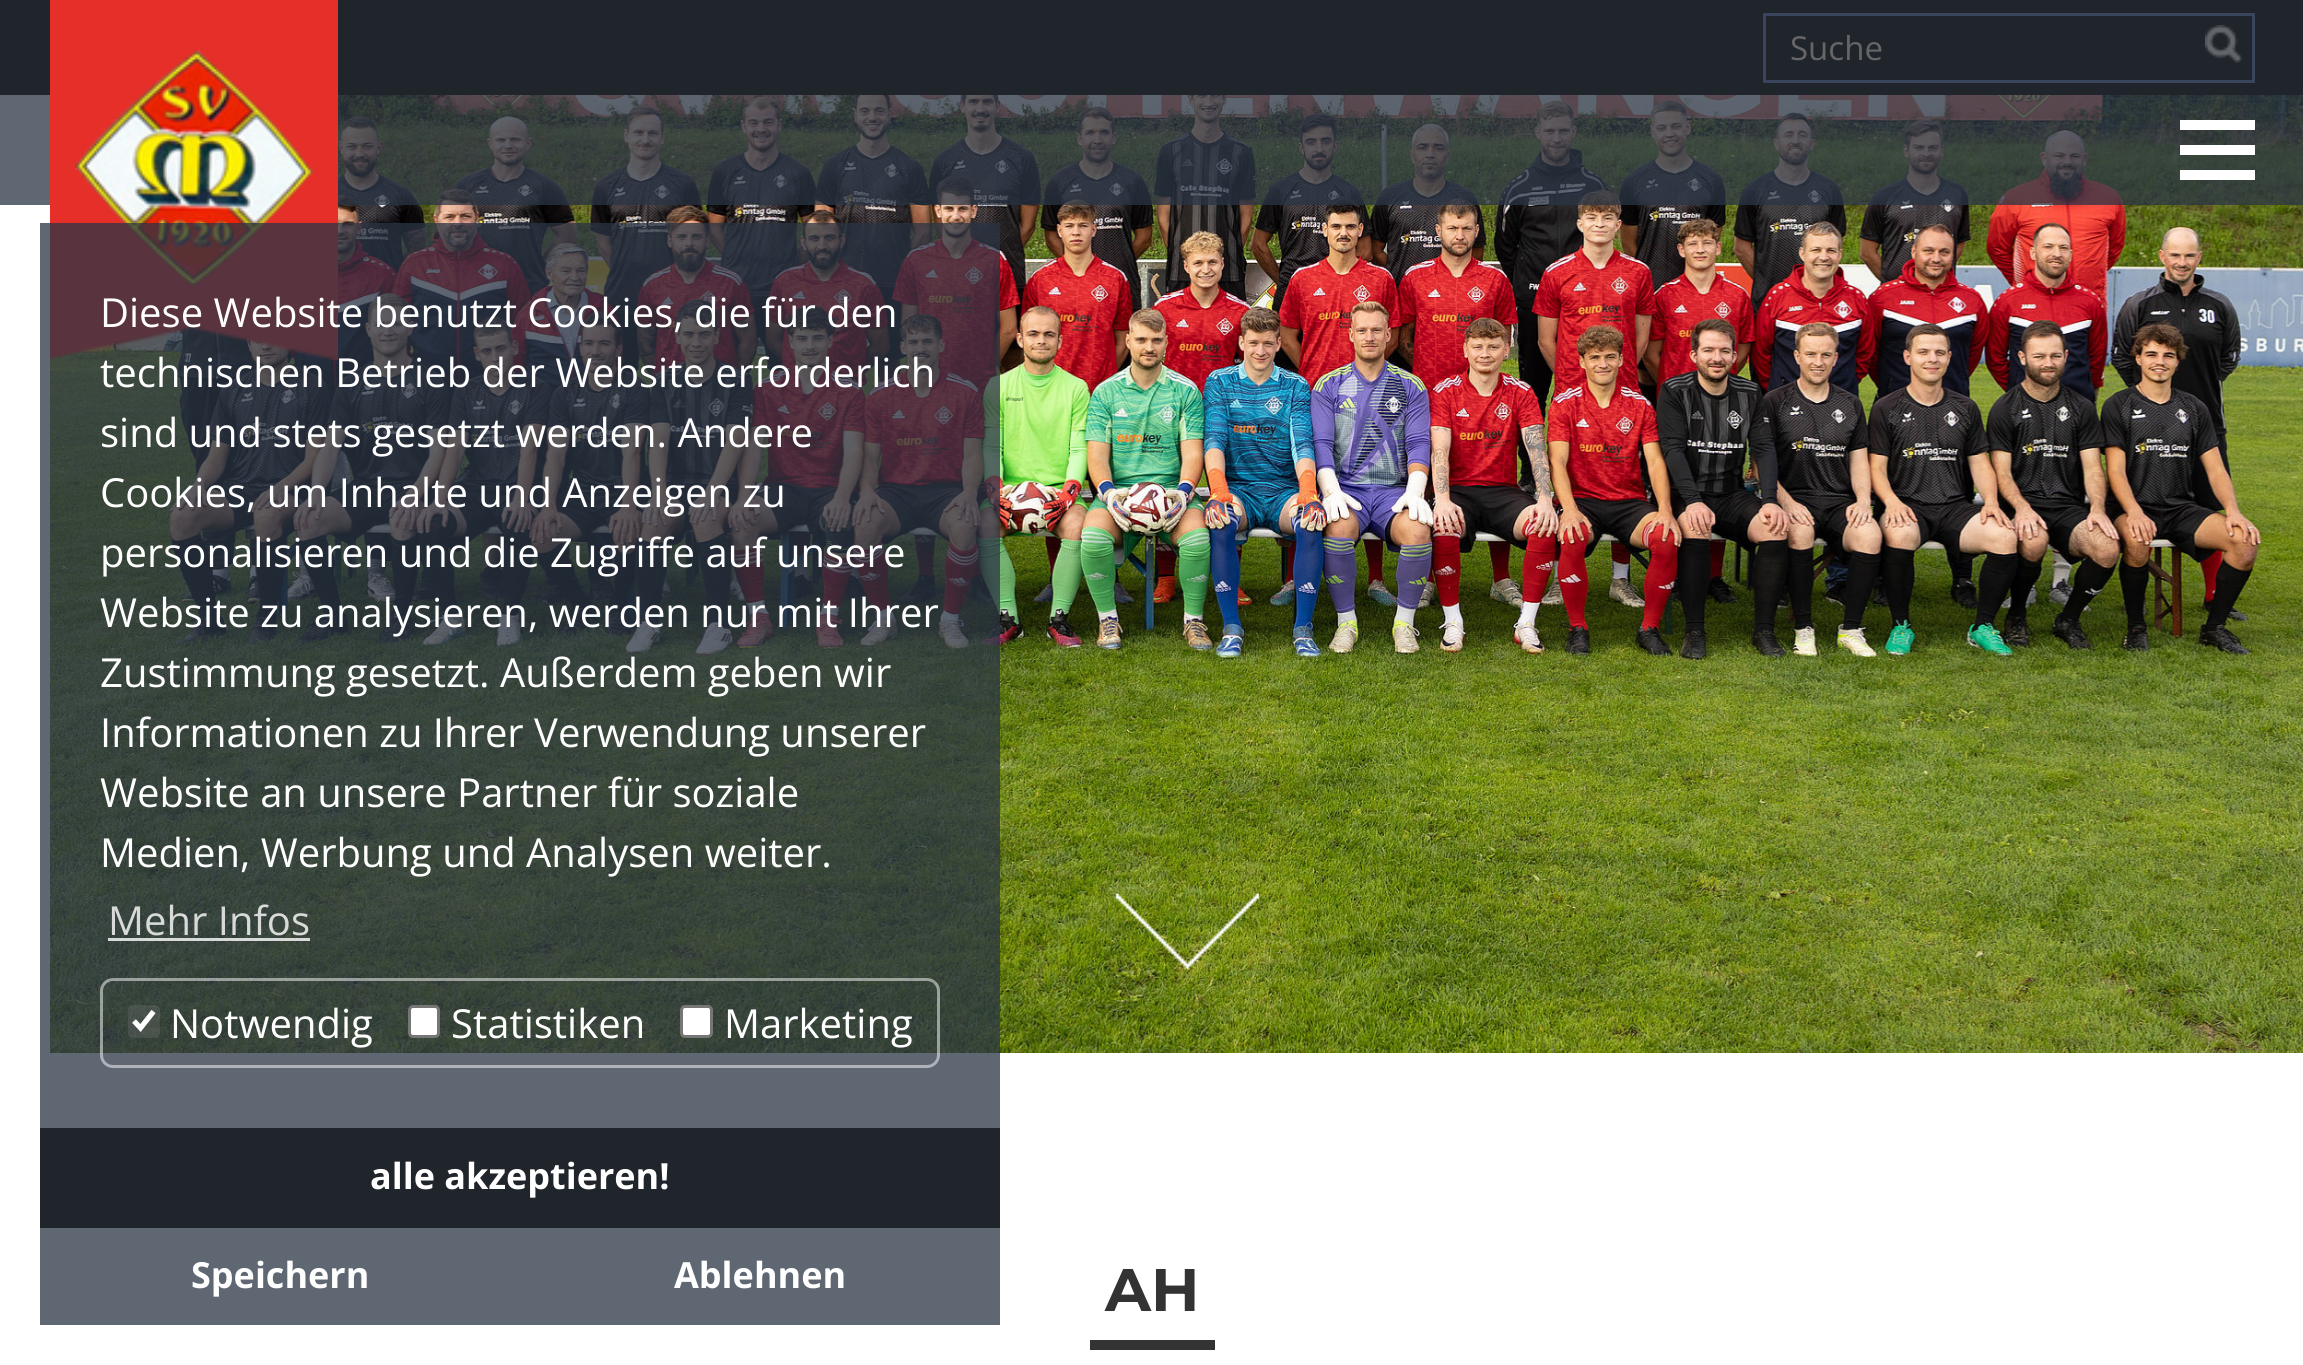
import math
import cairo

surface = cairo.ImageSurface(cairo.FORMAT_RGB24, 2303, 1365)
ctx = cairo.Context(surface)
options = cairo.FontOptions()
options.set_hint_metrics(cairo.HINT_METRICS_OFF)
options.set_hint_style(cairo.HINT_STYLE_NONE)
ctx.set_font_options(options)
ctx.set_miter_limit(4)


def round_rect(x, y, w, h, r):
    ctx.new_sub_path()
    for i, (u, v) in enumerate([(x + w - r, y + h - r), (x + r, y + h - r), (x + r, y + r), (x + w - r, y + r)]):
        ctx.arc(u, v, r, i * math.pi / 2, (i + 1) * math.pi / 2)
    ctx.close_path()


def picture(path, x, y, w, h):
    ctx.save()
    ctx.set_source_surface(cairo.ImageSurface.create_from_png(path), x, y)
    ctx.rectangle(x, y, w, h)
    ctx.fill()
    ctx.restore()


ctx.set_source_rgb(1, 1, 1)
ctx.paint()
ctx.set_source_rgb(0.125, 0.145, 0.173)
ctx.rectangle(0, 0, 2303, 95)
ctx.fill()
picture("img4.png", 50, 95, 2253, 958)
ctx.set_source_rgba(0.165, 0.204, 0.267, 0.75)
ctx.rectangle(0, 95, 2303, 110)
ctx.fill()
picture("img1.png", 50, 0, 288, 360)
picture("img2.png", 75, 50, 238, 238)
ctx.rectangle(1764.5, 14.5, 489, 67)
ctx.set_source_rgb(0.22, 0.271, 0.353)
ctx.set_line_width(3)
ctx.stroke()
ctx.select_font_face("Open Sans")
ctx.set_font_size(33)
ctx.set_source_rgb(0.4, 0.4, 0.4)
ctx.move_to(1790, 60)
ctx.show_text("Suche")
picture("img3.png", 2205, 25, 38, 38)
ctx.set_source_rgb(1, 1, 1)
ctx.rectangle(2180, 120, 75, 10)
ctx.fill()
ctx.rectangle(2180, 145, 75, 10)
ctx.fill()
ctx.rectangle(2180, 170, 75, 10)
ctx.fill()
picture("img5.png", 1116, 893, 143, 76)
ctx.set_source_rgba(0.165, 0.204, 0.267, 0.75)
ctx.rectangle(40, 223, 960, 1102)
ctx.fill()
ctx.set_font_size(40)
ctx.set_source_rgb(1, 1, 1)
ctx.move_to(100, 327)
ctx.show_text("Diese Website benutzt Cookies, die für den")
ctx.move_to(100, 387)
ctx.show_text("technischen Betrieb der Website erforderlich")
ctx.move_to(100, 447)
ctx.show_text("sind und stets gesetzt werden. Andere")
ctx.move_to(100, 507)
ctx.show_text("Cookies, um Inhalte und Anzeigen zu")
ctx.move_to(100, 567)
ctx.show_text("personalisieren und die Zugriffe auf unsere")
ctx.move_to(100, 627)
ctx.show_text("Website zu analysieren, werden nur mit Ihrer")
ctx.move_to(100, 687)
ctx.show_text("Zustimmung gesetzt. Außerdem geben wir")
ctx.move_to(100, 747)
ctx.show_text("Informationen zu Ihrer Verwendung unserer")
ctx.move_to(100, 807)
ctx.show_text("Website an unsere Partner für soziale")
ctx.move_to(100, 867)
ctx.show_text("Medien, Werbung und Analysen weiter.")
ctx.set_source_rgb(0.843, 0.855, 0.847)
ctx.move_to(108, 935)
ctx.show_text("Mehr Infos")
ctx.set_source_rgba(1, 1, 1, 0.8)
ctx.rectangle(108, 938, 202, 3)
ctx.fill()
round_rect(101.5, 979.5, 837, 87, 11.5)
ctx.set_source_rgba(1, 1, 1, 0.5)
ctx.stroke()
ctx.set_source_rgba(0.463, 0.463, 0.463, 0.3)
round_rect(128, 1005, 32, 33, 5)
ctx.fill()
ctx.new_path()
ctx.move_to(134, 1021)
ctx.line_to(140.5, 1028)
ctx.line_to(153.5, 1011.5)
ctx.set_source_rgb(1, 1, 1)
ctx.set_line_width(5.2)
ctx.stroke()
ctx.move_to(170, 1038)
ctx.show_text("Notwendig")
round_rect(409.5, 1006.5, 29, 30, 3.5)
ctx.fill_preserve()
ctx.set_source_rgb(0.463, 0.463, 0.463)
ctx.set_line_width(3)
ctx.stroke()
ctx.set_source_rgb(1, 1, 1)
ctx.move_to(451, 1038)
ctx.show_text("Statistiken")
round_rect(681.5, 1006.5, 30, 30, 3.5)
ctx.fill_preserve()
ctx.set_source_rgb(0.463, 0.463, 0.463)
ctx.stroke()
ctx.set_source_rgb(1, 1, 1)
ctx.move_to(724, 1038)
ctx.show_text("Marketing")
ctx.set_source_rgb(0.125, 0.145, 0.173)
ctx.rectangle(40, 1128, 960, 100)
ctx.fill()
ctx.select_font_face("Open Sans", cairo.FONT_SLANT_NORMAL, cairo.FONT_WEIGHT_BOLD)
ctx.set_font_size(36)
ctx.set_source_rgb(1, 1, 1)
ctx.move_to(370, 1189)
ctx.show_text("alle akzeptieren!")
ctx.move_to(191, 1288)
ctx.show_text("Speichern")
ctx.move_to(674, 1288)
ctx.show_text("Ablehnen")
ctx.select_font_face("Montserrat Thin")
ctx.set_font_size(60)
ctx.set_source_rgb(0.2, 0.2, 0.2)
ctx.move_to(1105, 1311)
ctx.show_text("AH")
ctx.rectangle(1090, 1340, 125, 10)
ctx.fill()
surface.write_to_png("page.png")
